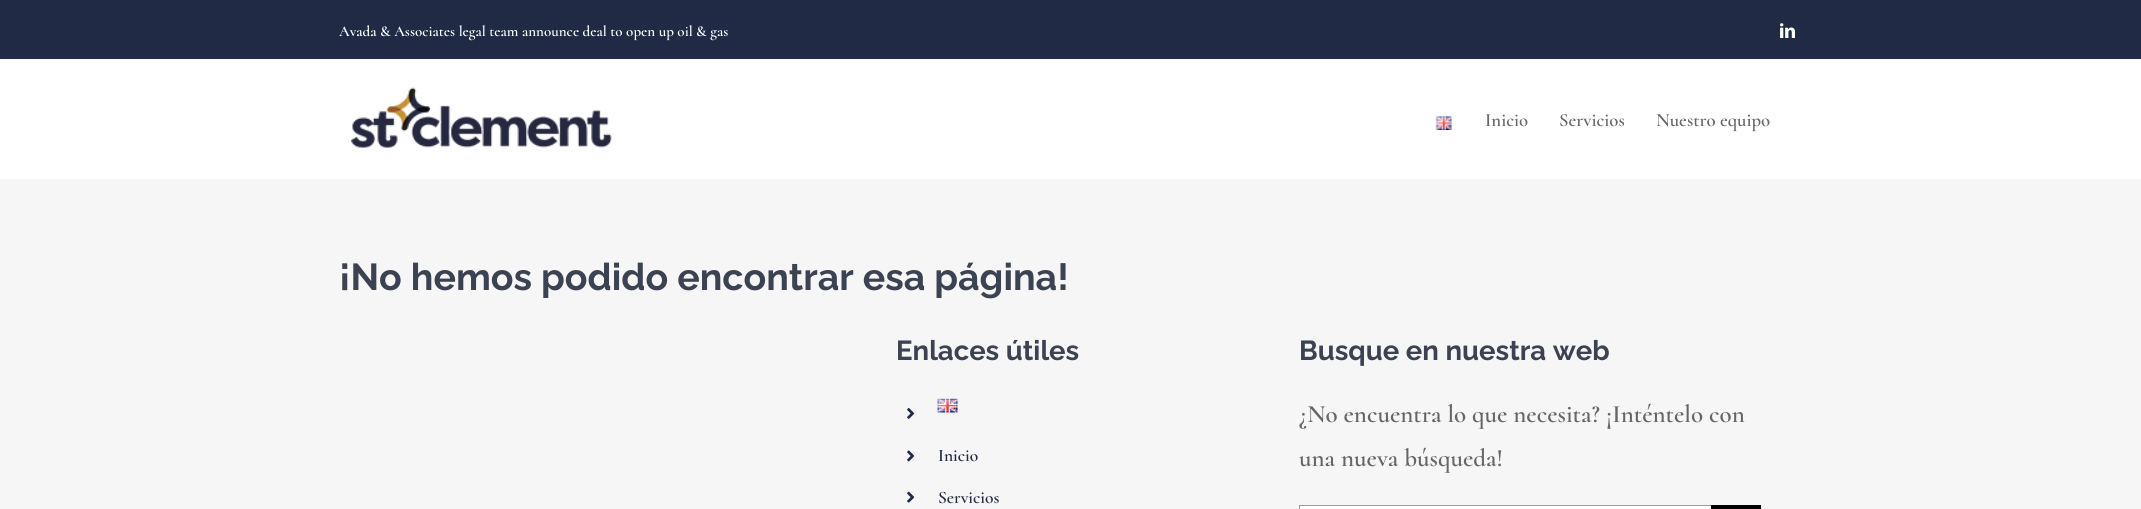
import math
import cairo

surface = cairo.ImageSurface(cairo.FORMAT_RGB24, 2141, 509)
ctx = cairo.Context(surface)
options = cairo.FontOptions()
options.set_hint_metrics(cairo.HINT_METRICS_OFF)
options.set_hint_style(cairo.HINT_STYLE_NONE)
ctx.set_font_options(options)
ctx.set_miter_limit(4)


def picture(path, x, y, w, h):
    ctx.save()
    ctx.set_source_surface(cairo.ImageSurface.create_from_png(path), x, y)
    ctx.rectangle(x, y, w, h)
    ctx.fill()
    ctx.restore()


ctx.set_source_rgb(0.961, 0.961, 0.961)
ctx.paint()
ctx.set_source_rgb(0.125, 0.165, 0.267)
ctx.rectangle(0, 0, 2141, 59)
ctx.fill()
ctx.select_font_face("Cormorant SemiBold")
ctx.set_font_size(15)
ctx.set_source_rgb(1, 1, 1)
ctx.move_to(339, 36)
ctx.show_text("Avada & Associates legal team announce deal to open up oil & gas")
picture("img1.png", 1780, 23, 15, 15)
ctx.rectangle(0, 60, 2141, 119)
ctx.fill()
picture("img2.png", 350, 87, 262, 62)
picture("img3.png", 1435, 116, 17, 14)
ctx.set_font_size(18.75)
ctx.set_source_rgb(0.4, 0.4, 0.4)
ctx.move_to(1485, 126)
ctx.show_text("Inicio")
ctx.move_to(1559, 126)
ctx.show_text("Servicios")
ctx.move_to(1656, 126)
ctx.show_text("Nuestro equipo")
ctx.select_font_face("Raleway Thin")
ctx.set_font_size(37.5)
ctx.set_source_rgb(0.231, 0.259, 0.318)
ctx.move_to(339, 290)
ctx.show_text("¡No hemos podido encontrar esa página!")
ctx.set_font_size(27.5)
ctx.move_to(896, 360)
ctx.show_text("Enlaces útiles")
picture("img4.png", 907, 408, 8, 11)
picture("img5.png", 937, 398, 21, 15)
picture("img6.png", 907, 450, 8, 12)
ctx.select_font_face("Cormorant SemiBold")
ctx.set_font_size(17.5)
ctx.set_source_rgb(0.125, 0.165, 0.267)
ctx.move_to(938, 461)
ctx.show_text("Inicio")
picture("img7.png", 907, 491, 8, 12)
ctx.move_to(938, 503)
ctx.show_text("Servicios")
ctx.select_font_face("Raleway Thin")
ctx.set_font_size(27.5)
ctx.set_source_rgb(0.231, 0.259, 0.318)
ctx.move_to(1299, 360)
ctx.show_text("Busque en nuestra web")
ctx.select_font_face("Cormorant SemiBold")
ctx.set_font_size(25)
ctx.set_source_rgb(0.4, 0.4, 0.4)
ctx.move_to(1299, 422)
ctx.show_text("¿No encuentra lo que necesita? ¡Inténtelo con")
ctx.move_to(1299, 466)
ctx.show_text("una nueva búsqueda!")
ctx.set_source_rgb(1, 1, 1)
ctx.rectangle(1299, 506, 412, 3)
ctx.fill()
ctx.set_source_rgb(0.737, 0.6, 0.365)
ctx.rectangle(1299, 505, 412, 1)
ctx.fill()
ctx.rectangle(1299, 505, 1, 4)
ctx.fill()
ctx.set_source_rgb(0, 0, 0)
ctx.rectangle(1711, 505, 50, 4)
ctx.fill()
surface.write_to_png("page.png")
